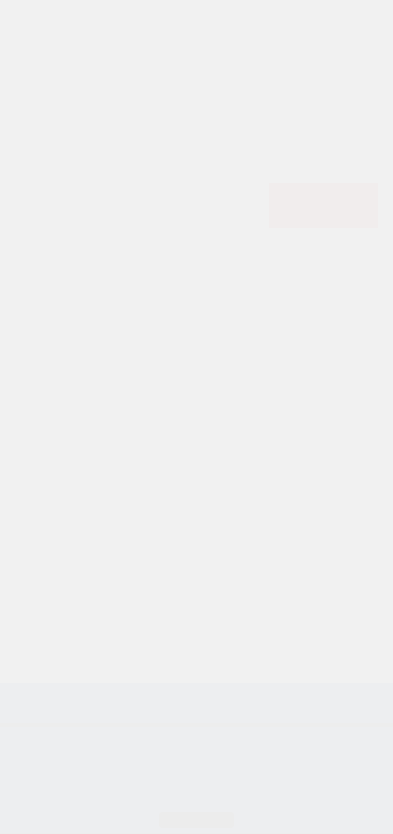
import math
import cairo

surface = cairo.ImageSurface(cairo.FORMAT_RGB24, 393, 834)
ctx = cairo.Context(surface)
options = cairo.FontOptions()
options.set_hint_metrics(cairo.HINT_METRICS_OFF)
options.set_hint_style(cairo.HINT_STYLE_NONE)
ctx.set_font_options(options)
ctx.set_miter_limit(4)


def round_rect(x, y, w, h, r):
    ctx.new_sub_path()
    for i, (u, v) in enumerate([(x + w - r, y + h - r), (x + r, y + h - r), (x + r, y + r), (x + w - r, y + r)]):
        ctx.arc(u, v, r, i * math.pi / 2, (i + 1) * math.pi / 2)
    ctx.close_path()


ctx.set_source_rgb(0.929, 0.933, 0.941)
ctx.paint()
ctx.set_source_rgb(0.945, 0.945, 0.945)
ctx.rectangle(0, 0, 393, 683)
ctx.fill()
ctx.set_source_rgb(0.945, 0.929, 0.929)
ctx.rectangle(269, 183, 109, 45)
ctx.fill()
ctx.set_source_rgb(0.929, 0.929, 0.929)
ctx.rectangle(0, 723, 393, 4)
ctx.fill()
ctx.rectangle(0, 833, 393, 1)
ctx.fill()
ctx.set_source_rgb(0.925, 0.925, 0.925)
round_rect(159, 812, 75, 16, 3)
ctx.fill()
surface.write_to_png("page.png")
